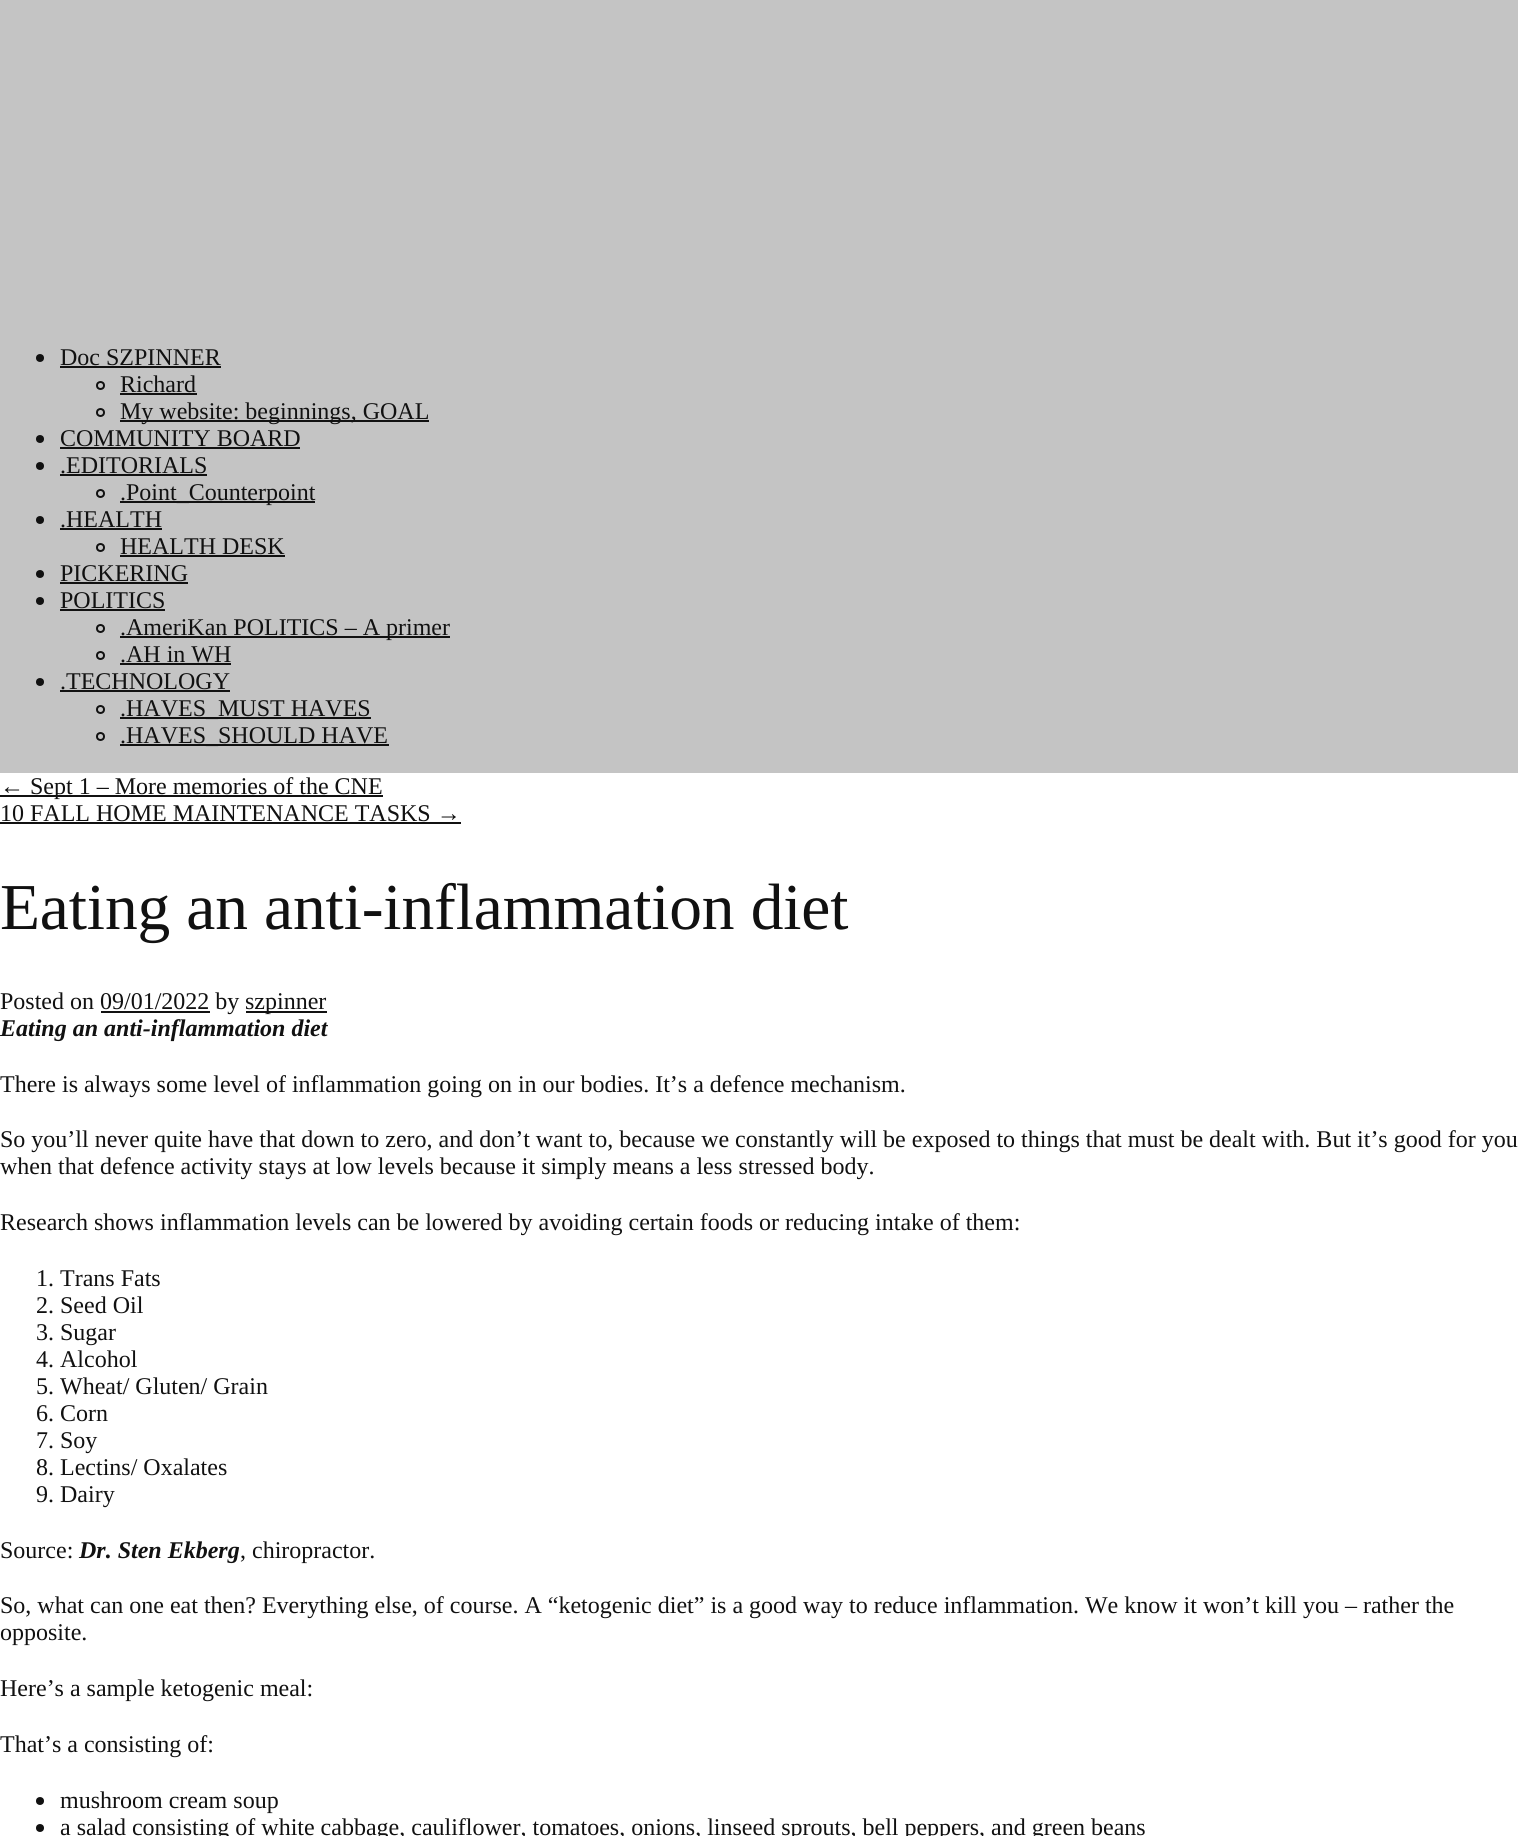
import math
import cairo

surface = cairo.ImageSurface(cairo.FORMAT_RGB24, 1518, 1836)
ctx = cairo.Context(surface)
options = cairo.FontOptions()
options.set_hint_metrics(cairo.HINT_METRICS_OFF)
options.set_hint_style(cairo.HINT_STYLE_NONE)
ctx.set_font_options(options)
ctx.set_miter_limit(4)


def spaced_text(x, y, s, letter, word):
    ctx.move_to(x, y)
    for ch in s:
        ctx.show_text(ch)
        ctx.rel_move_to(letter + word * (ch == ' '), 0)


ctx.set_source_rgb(0.769, 0.769, 0.769)
ctx.paint()
ctx.set_source_rgb(0.067, 0.067, 0.067)
ctx.arc(40, 358, 4, 0, 2 * math.pi)
ctx.fill()
ctx.select_font_face("Liberation Serif")
ctx.set_font_size(24)
ctx.move_to(60, 365)
ctx.show_text("Doc SZPINNER")
ctx.rectangle(60, 366, 161, 2)
ctx.fill()
ctx.arc(100.5, 385.5, 3.5, 0, 2 * math.pi)
ctx.stroke()
ctx.move_to(120, 392)
ctx.show_text("Richard")
ctx.rectangle(120, 393, 77, 2)
ctx.fill()
ctx.arc(100.5, 412.5, 3.5, 0, 2 * math.pi)
ctx.stroke()
ctx.rectangle(120, 420, 309, 2)
ctx.fill()
ctx.move_to(120, 419)
ctx.show_text("My website: beginnings, GOAL")
ctx.new_path()
ctx.arc(40, 439, 4, 0, 2 * math.pi)
ctx.fill()
ctx.move_to(60, 446)
ctx.show_text("COMMUNITY BOARD")
ctx.rectangle(60, 447, 240, 2)
ctx.fill()
ctx.arc(40, 466, 4, 0, 2 * math.pi)
ctx.fill()
ctx.move_to(60, 473)
ctx.show_text(".EDITORIALS")
ctx.rectangle(60, 474, 147, 2)
ctx.fill()
ctx.arc(100.5, 493.5, 3.5, 0, 2 * math.pi)
ctx.stroke()
ctx.rectangle(120, 501, 195, 2)
ctx.fill()
ctx.move_to(120, 500)
ctx.show_text(".Point_Counterpoint")
ctx.new_path()
ctx.arc(40, 520, 4, 0, 2 * math.pi)
ctx.fill()
ctx.move_to(60, 527)
ctx.show_text(".HEALTH")
ctx.rectangle(60, 528, 102, 2)
ctx.fill()
ctx.arc(100.5, 547.5, 3.5, 0, 2 * math.pi)
ctx.stroke()
ctx.move_to(120, 554)
ctx.show_text("HEALTH DESK")
ctx.rectangle(120, 555, 165, 2)
ctx.fill()
ctx.arc(40, 574, 4, 0, 2 * math.pi)
ctx.fill()
ctx.move_to(60, 581)
ctx.show_text("PICKERING")
ctx.rectangle(60, 582, 128, 2)
ctx.fill()
ctx.arc(40, 601, 4, 0, 2 * math.pi)
ctx.fill()
ctx.move_to(60, 608)
ctx.show_text("POLITICS")
ctx.rectangle(60, 609, 105, 2)
ctx.fill()
ctx.arc(100.5, 628.5, 3.5, 0, 2 * math.pi)
ctx.stroke()
ctx.rectangle(120, 636, 330, 2)
ctx.fill()
ctx.move_to(120, 635)
ctx.show_text(".AmeriKan POLITICS – A primer")
ctx.new_path()
ctx.arc(100.5, 655.5, 3.5, 0, 2 * math.pi)
ctx.stroke()
ctx.move_to(120, 662)
ctx.show_text(".AH in WH")
ctx.rectangle(120, 663, 111, 2)
ctx.fill()
ctx.arc(40, 682, 4, 0, 2 * math.pi)
ctx.fill()
ctx.move_to(60, 689)
ctx.show_text(".TECHNOLOGY")
ctx.rectangle(60, 690, 170, 2)
ctx.fill()
ctx.arc(100.5, 709.5, 3.5, 0, 2 * math.pi)
ctx.stroke()
ctx.rectangle(120, 717, 251, 2)
ctx.fill()
ctx.move_to(120, 716)
ctx.show_text(".HAVES_MUST HAVES")
ctx.new_path()
ctx.arc(100.5, 736.5, 3.5, 0, 2 * math.pi)
ctx.stroke()
ctx.rectangle(120, 744, 269, 2)
ctx.fill()
ctx.move_to(120, 743)
ctx.show_text(".HAVES_SHOULD HAVE")
ctx.set_source_rgb(1, 1, 1)
ctx.rectangle(0, 773, 1518, 1063)
ctx.fill()
ctx.set_source_rgb(0.067, 0.067, 0.067)
ctx.rectangle(0, 795, 383, 2)
ctx.fill()
ctx.move_to(0, 794)
ctx.show_text("← Sept 1 – More memories of the CNE")
ctx.move_to(0, 821)
ctx.show_text("10 FALL HOME MAINTENANCE TASKS →")
ctx.rectangle(0, 822, 461, 2)
ctx.fill()
ctx.set_font_size(65.5)
spaced_text(0, 929, "Eating an anti-inflammation diet", -0.15, 0)
ctx.set_font_size(24)
ctx.move_to(0, 1009)
ctx.show_text("Posted on 09/01/2022 by")
ctx.rectangle(246, 1011, 81, 2)
ctx.fill()
ctx.move_to(245, 1009)
ctx.show_text("szpinner")
ctx.rectangle(101, 1011, 109, 2)
ctx.fill()
ctx.select_font_face("Liberation Serif", cairo.FONT_SLANT_ITALIC, cairo.FONT_WEIGHT_BOLD)
ctx.move_to(0, 1036)
ctx.show_text("Eating an anti-inflammation diet")
ctx.select_font_face("Liberation Serif")
ctx.move_to(0, 1092)
ctx.show_text("There is always some level of inflammation going on in our bodies. It’s a defence mechanism.")
ctx.move_to(0, 1147)
ctx.show_text("So you’ll never quite have that down to zero, and don’t want to, because we constantly will be exposed to things that must be dealt with. But it’s good for you")
ctx.move_to(0, 1174)
ctx.show_text("when that defence activity stays at low levels because it simply means a less stressed body.")
ctx.move_to(0, 1230)
ctx.show_text("Research shows inflammation levels can be lowered by avoiding certain foods or reducing intake of them:")
ctx.move_to(36, 1286)
ctx.show_text("1. Trans Fats")
ctx.move_to(36, 1313)
ctx.show_text("2. Seed Oil")
ctx.move_to(36, 1340)
ctx.show_text("3. Sugar")
ctx.move_to(36, 1367)
ctx.show_text("4. Alcohol")
ctx.move_to(36, 1394)
ctx.show_text("5. Wheat/ Gluten/ Grain")
ctx.move_to(36, 1421)
ctx.show_text("6. Corn")
ctx.move_to(36, 1448)
ctx.show_text("7. Soy")
ctx.move_to(36, 1475)
ctx.show_text("8. Lectins/ Oxalates")
ctx.move_to(36, 1502)
ctx.show_text("9. Dairy")
ctx.move_to(0, 1558)
ctx.show_text("Source:")
ctx.select_font_face("Liberation Serif", cairo.FONT_SLANT_ITALIC, cairo.FONT_WEIGHT_BOLD)
ctx.move_to(79, 1558)
ctx.show_text("Dr. Sten Ekberg")
ctx.select_font_face("Liberation Serif")
ctx.move_to(240, 1558)
ctx.show_text(", chiropractor.")
ctx.move_to(0, 1613)
ctx.show_text("So, what can one eat then? Everything else, of course. A “ketogenic diet” is a good way to reduce inflammation. We know it won’t kill you – rather the")
ctx.move_to(0, 1640)
ctx.show_text("opposite.")
ctx.move_to(0, 1696)
ctx.show_text("Here’s a sample ketogenic meal:")
ctx.move_to(0, 1752)
ctx.show_text("That’s a consisting of:")
ctx.new_path()
ctx.arc(40, 1801, 4, 0, 2 * math.pi)
ctx.fill()
ctx.move_to(60, 1808)
ctx.show_text("mushroom cream soup")
ctx.new_path()
ctx.arc(40, 1828, 4, 0, 2 * math.pi)
ctx.fill()
ctx.move_to(60, 1835)
ctx.show_text("a salad consisting of white cabbage, cauliflower, tomatoes, onions, linseed sprouts, bell peppers, and green beans")
surface.write_to_png("page.png")
